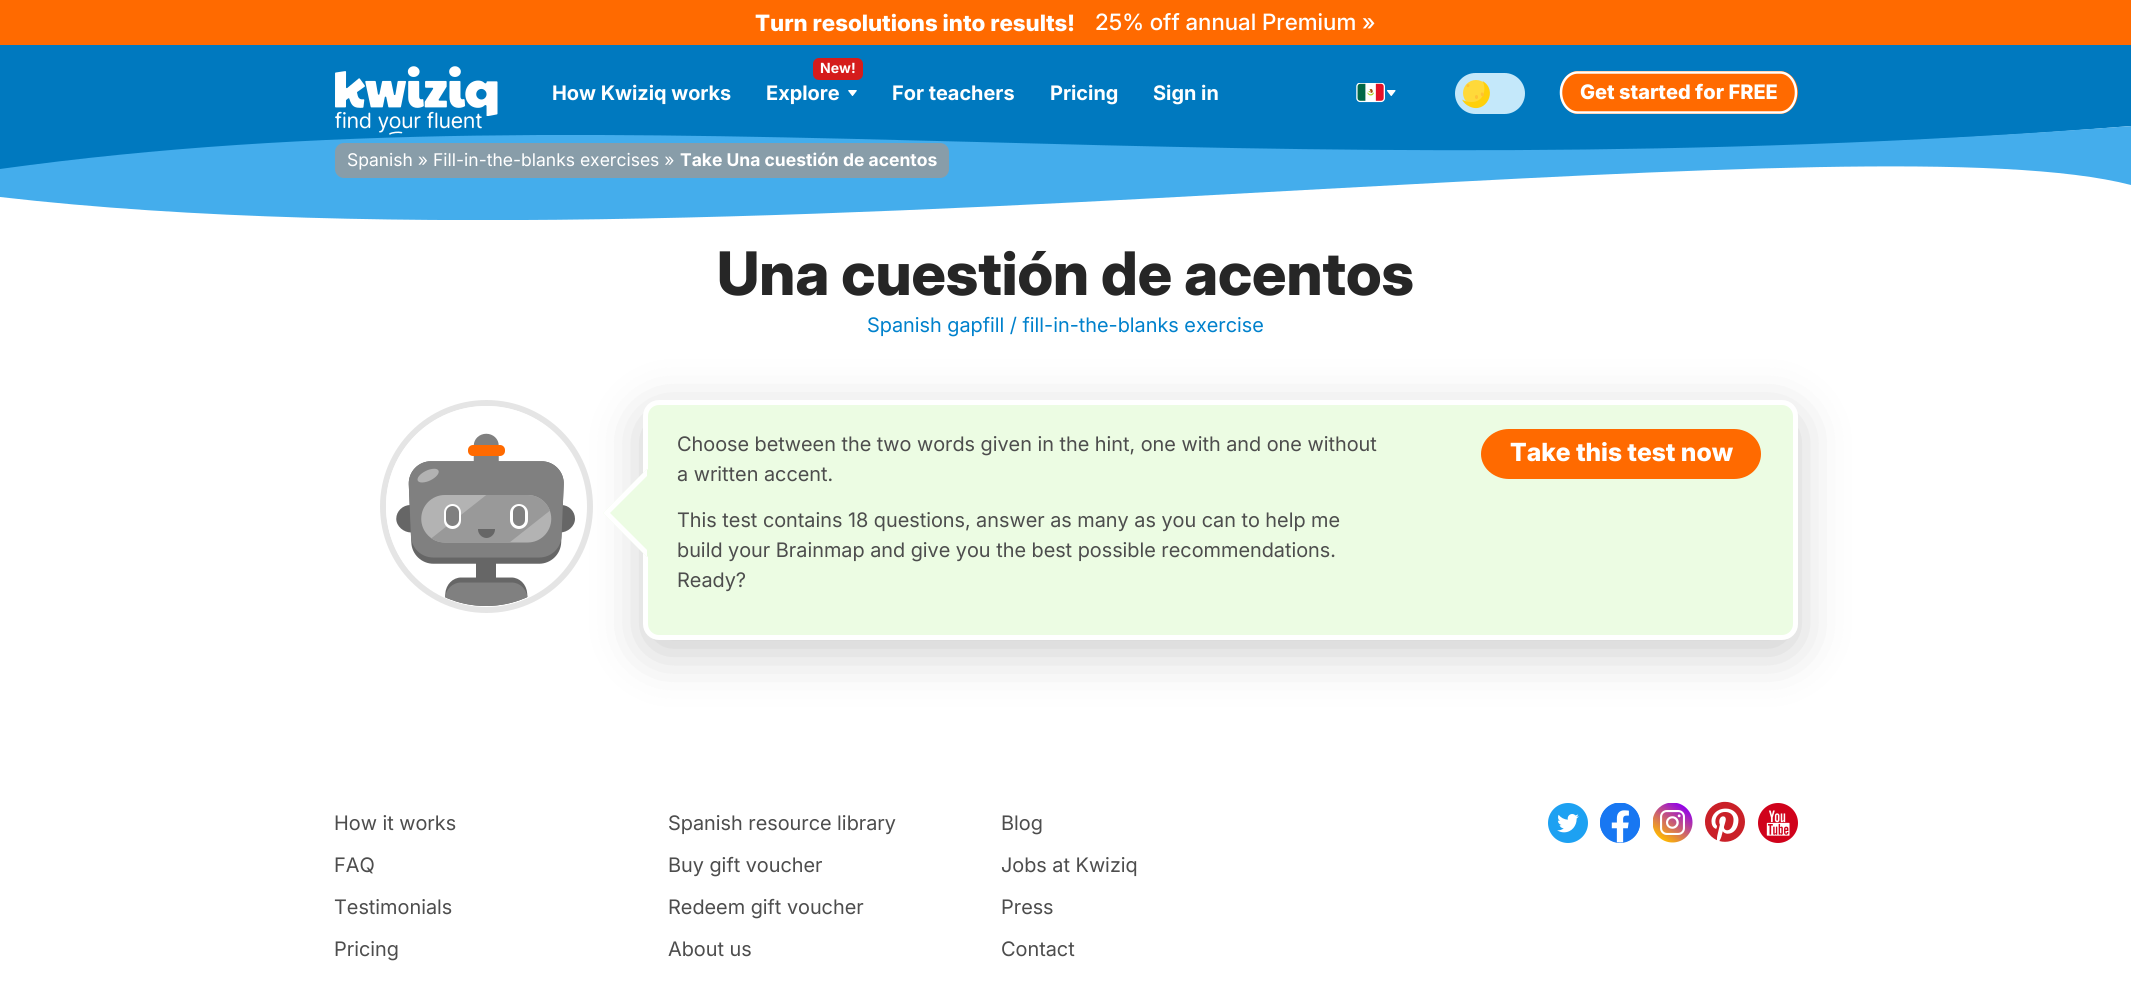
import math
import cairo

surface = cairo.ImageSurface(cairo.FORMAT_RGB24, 2131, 990)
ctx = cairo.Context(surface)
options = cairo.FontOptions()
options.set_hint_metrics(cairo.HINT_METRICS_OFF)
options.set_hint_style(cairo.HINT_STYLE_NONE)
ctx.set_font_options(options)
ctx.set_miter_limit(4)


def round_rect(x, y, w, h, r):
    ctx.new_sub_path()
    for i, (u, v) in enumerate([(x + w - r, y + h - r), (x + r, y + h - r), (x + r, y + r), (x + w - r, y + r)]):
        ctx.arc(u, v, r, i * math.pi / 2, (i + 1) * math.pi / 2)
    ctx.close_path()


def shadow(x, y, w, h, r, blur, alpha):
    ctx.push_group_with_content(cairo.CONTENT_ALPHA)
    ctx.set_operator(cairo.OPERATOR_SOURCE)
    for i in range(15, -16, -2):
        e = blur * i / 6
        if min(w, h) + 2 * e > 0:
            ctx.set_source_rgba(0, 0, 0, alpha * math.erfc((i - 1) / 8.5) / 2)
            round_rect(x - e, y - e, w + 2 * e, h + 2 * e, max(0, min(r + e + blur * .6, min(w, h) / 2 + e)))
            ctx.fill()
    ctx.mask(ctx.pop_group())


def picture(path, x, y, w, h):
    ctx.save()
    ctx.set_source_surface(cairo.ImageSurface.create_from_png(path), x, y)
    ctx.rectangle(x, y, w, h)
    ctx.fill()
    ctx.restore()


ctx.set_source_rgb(1, 1, 1)
ctx.paint()
ctx.set_source_rgb(1, 0.416, 0)
ctx.rectangle(0, 0, 2131, 45)
ctx.fill()
ctx.select_font_face("Inter ExtraBold")
ctx.set_font_size(22.5)
ctx.set_source_rgb(1, 1, 1)
ctx.move_to(755, 31)
ctx.show_text("Turn resolutions into results!")
ctx.select_font_face("Inter Medium")
ctx.move_to(1095, 30)
ctx.show_text("25% off annual Premium »")
ctx.set_source_rgb(0, 0.475, 0.749)
ctx.new_path()
ctx.move_to(2131, 45)
ctx.line_to(0, 45)
ctx.line_to(0, 171)
ctx.curve_to(317, 126, 627, 134, 977, 143)
ctx.curve_to(1312, 152, 1684, 162, 2131, 126)
ctx.close_path()
ctx.fill()
ctx.save()
ctx.rectangle(0, 45, 2131, 175)
ctx.clip()
ctx.set_source_rgb(0.267, 0.678, 0.922)
ctx.new_path()
ctx.move_to(977, 142)
ctx.curve_to(627, 133, 317, 125, 0, 169)
ctx.line_to(0, 197)
ctx.curve_to(381, 241, 891, 213, 1323, 189)
ctx.curve_to(1691, 169, 2004, 152, 2131, 185)
ctx.line_to(2131, 126)
ctx.curve_to(1684, 160, 1312, 151, 977, 142)
ctx.close_path()
ctx.fill()
ctx.restore()
picture("img1.png", 335, 66, 163, 50)
picture("img2.png", 335, 111, 147, 24)
ctx.select_font_face("Inter", cairo.FONT_SLANT_NORMAL, cairo.FONT_WEIGHT_BOLD)
ctx.set_font_size(20)
ctx.set_source_rgb(1, 1, 1)
ctx.move_to(552, 100)
ctx.show_text("How Kwiziq works")
ctx.set_source_rgb(0.835, 0.11, 0.106)
round_rect(813, 58, 50, 22, 6)
ctx.fill()
ctx.select_font_face("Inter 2", cairo.FONT_SLANT_NORMAL, cairo.FONT_WEIGHT_BOLD)
ctx.set_font_size(14)
ctx.set_source_rgb(1, 1, 1)
ctx.move_to(820, 73)
ctx.show_text("New!")
ctx.select_font_face("Inter", cairo.FONT_SLANT_NORMAL, cairo.FONT_WEIGHT_BOLD)
ctx.set_font_size(20)
ctx.move_to(766, 100)
ctx.show_text("Explore")
picture("img3.png", 848, 90, 9, 6)
ctx.move_to(892, 100)
ctx.show_text("For teachers")
ctx.move_to(1050, 100)
ctx.show_text("Pricing")
ctx.move_to(1153, 100)
ctx.show_text("Sign in")
picture("img4.png", 1356, 83, 29, 20)
picture("img5.png", 1387, 90, 9, 6)
ctx.set_source_rgb(0.769, 0.91, 0.98)
round_rect(1455, 73, 70, 41, 20.5)
ctx.fill()
ctx.set_source_rgb(1, 0.851, 0.227)
ctx.arc(1476, 93, 13, 0, 2 * math.pi)
ctx.fill()
ctx.set_source_rgb(1, 0.816, 0.043)
ctx.new_path()
ctx.move_to(1462, 99.5)
ctx.curve_to(1463.5, 102.5, 1466, 105, 1469.5, 106.5)
ctx.curve_to(1486, 114.5, 1498.5, 90, 1482.5, 81)
ctx.curve_to(1487, 89.5, 1483.5, 102.5, 1471, 102)
ctx.curve_to(1467.5, 102, 1464.5, 101, 1462, 99.5)
ctx.close_path()
ctx.fill()
ctx.set_source_rgb(1, 0.757, 0.208)
ctx.new_path()
ctx.move_to(1469, 84.5)
ctx.curve_to(1470.5, 85.5, 1468.5, 88, 1467, 87)
ctx.curve_to(1465.5, 85.5, 1467.5, 83, 1469, 84.5)
ctx.close_path()
ctx.fill()
round_rect(1475, 95, 3, 4, 1.5)
ctx.fill()
ctx.new_path()
ctx.move_to(1481.5, 92.5)
ctx.curve_to(1483.5, 92, 1485, 95.5, 1483, 96.5)
ctx.curve_to(1481, 97, 1480, 93.5, 1481.5, 92.5)
ctx.close_path()
ctx.fill()
ctx.set_source_rgb(1, 0.416, 0)
ctx.new_path()
ctx.move_to(1578, 71)
ctx.line_to(1780, 71)
ctx.curve_to(1790, 71, 1798, 81, 1798, 92)
ctx.curve_to(1798, 104, 1790, 114, 1780, 114)
ctx.line_to(1578, 114)
ctx.curve_to(1568, 114, 1560, 104, 1560, 92)
ctx.curve_to(1560, 81, 1568, 71, 1578, 71)
ctx.close_path()
ctx.fill()
ctx.new_path()
ctx.move_to(1577.5, 72.5)
ctx.line_to(1780, 72.5)
ctx.curve_to(1789, 72.5, 1796, 81.5, 1796, 92.5)
ctx.curve_to(1796, 103.5, 1789, 112.5, 1780, 112.5)
ctx.line_to(1577.5, 112.5)
ctx.curve_to(1568.5, 112.5, 1561, 103.5, 1561, 92.5)
ctx.curve_to(1561, 81.5, 1568.5, 72.5, 1577.5, 72.5)
ctx.close_path()
ctx.set_source_rgb(1, 1, 1)
ctx.set_line_width(2.5)
ctx.stroke()
ctx.select_font_face("Inter 2 ExtraBold")
ctx.move_to(1580, 99)
ctx.show_text("Get started for FREE")
ctx.set_source_rgb(0.533, 0.616, 0.663)
round_rect(335, 143, 614, 35, 9)
ctx.fill()
ctx.select_font_face("Inter 2")
ctx.set_font_size(17.5)
ctx.set_source_rgb(1, 1, 1)
ctx.move_to(347, 166)
ctx.show_text("Spanish » Fill-in-the-blanks exercises »")
ctx.select_font_face("Inter 2", cairo.FONT_SLANT_NORMAL, cairo.FONT_WEIGHT_BOLD)
ctx.move_to(680, 166)
ctx.show_text("Take Una cuestión de acentos")
ctx.select_font_face("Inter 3 ExtraBold")
ctx.set_font_size(60)
ctx.set_source_rgb(0.149, 0.149, 0.149)
ctx.move_to(717, 295)
ctx.show_text("Una cuestión de acentos")
ctx.select_font_face("Inter")
ctx.set_font_size(20)
ctx.set_source_rgb(0, 0.506, 0.8)
ctx.move_to(867, 332)
ctx.show_text("Spanish gapfill / fill-in-the-blanks exercise")
ctx.new_path()
ctx.arc(486.5, 506.5, 103.5, 0, 2 * math.pi)
ctx.set_source_rgb(0.898, 0.898, 0.898)
ctx.set_line_width(6)
ctx.stroke()
ctx.set_source_rgb(0, 0, 0)
shadow(643, 413, 1155, 240, 16, 25, 0.2)
ctx.set_source_rgb(1, 1, 1)
ctx.arc(486, 506, 100, 0, 2 * math.pi)
ctx.fill()
picture("img6.png", 396, 433, 179, 173)
ctx.set_source_rgb(1, 0.416, 0)
round_rect(468, 445, 37, 11, 5)
ctx.fill()
ctx.set_source_rgb(1, 1, 1)
round_rect(444, 504, 17, 25, 8.5)
ctx.fill()
ctx.set_source_rgb(0.502, 0.502, 0.502)
round_rect(446, 506, 13, 20, 6.5)
ctx.fill()
ctx.set_source_rgb(1, 1, 1)
round_rect(510, 504, 18, 25, 9)
ctx.fill()
ctx.set_source_rgb(0.502, 0.502, 0.502)
round_rect(513, 506, 12, 20, 6)
ctx.fill()
ctx.set_source_rgb(0.4, 0.4, 0.4)
ctx.new_path()
ctx.move_to(478, 529)
ctx.line_to(495, 529)
ctx.line_to(495, 529.5)
ctx.curve_to(495, 534, 491, 538, 486.5, 538)
ctx.curve_to(482, 538, 478, 534, 478, 529.5)
ctx.close_path()
ctx.fill()
ctx.set_source_rgb(0.925, 0.988, 0.89)
round_rect(645.5, 402.5, 1150, 235, 13.5)
ctx.fill_preserve()
ctx.set_source_rgb(1, 1, 1)
ctx.set_line_width(5)
ctx.stroke()
ctx.set_source_rgb(0.925, 0.988, 0.89)
ctx.new_path()
ctx.move_to(647, 469)
ctx.line_to(691, 513)
ctx.line_to(647, 557)
ctx.line_to(603, 513)
ctx.close_path()
ctx.fill()
ctx.set_source_rgb(1, 1, 1)
ctx.new_path()
ctx.move_to(647, 557)
ctx.line_to(603, 513)
ctx.line_to(610, 513)
ctx.line_to(647, 550)
ctx.close_path()
ctx.fill()
ctx.new_path()
ctx.move_to(603, 513)
ctx.line_to(647, 469)
ctx.line_to(647, 476)
ctx.line_to(610, 513)
ctx.close_path()
ctx.fill()
ctx.set_source_rgb(0.302, 0.302, 0.302)
ctx.move_to(677, 451)
ctx.show_text("Choose between the two words given in the hint, one with and one without")
ctx.move_to(677, 481)
ctx.show_text("a written accent.")
ctx.move_to(677, 527)
ctx.show_text("This test contains 18 questions, answer as many as you can to help me")
ctx.move_to(677, 557)
ctx.show_text("build your Brainmap and give you the best possible recommendations.")
ctx.move_to(677, 587)
ctx.show_text("Ready?")
ctx.set_source_rgb(1, 0.416, 0)
ctx.new_path()
ctx.move_to(1509, 429)
ctx.line_to(1734, 429)
ctx.curve_to(1749, 429, 1761, 440, 1761, 454)
ctx.curve_to(1761, 468, 1749, 479, 1734, 479)
ctx.line_to(1509, 479)
ctx.curve_to(1494, 479, 1481, 468, 1481, 454)
ctx.curve_to(1481, 440, 1494, 429, 1509, 429)
ctx.close_path()
ctx.fill()
ctx.select_font_face("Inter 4 ExtraBold")
ctx.set_font_size(25)
ctx.set_source_rgb(1, 1, 1)
ctx.move_to(1510, 461)
ctx.show_text("Take this test now")
ctx.select_font_face("Inter")
ctx.set_font_size(20)
ctx.set_source_rgb(0.302, 0.302, 0.302)
ctx.move_to(334, 830)
ctx.show_text("How it works")
ctx.move_to(668, 830)
ctx.show_text("Spanish resource library")
ctx.move_to(1001, 830)
ctx.show_text("Blog")
ctx.move_to(334, 872)
ctx.show_text("FAQ")
ctx.move_to(668, 872)
ctx.show_text("Buy gift voucher")
ctx.move_to(1001, 872)
ctx.show_text("Jobs at Kwiziq")
ctx.move_to(334, 914)
ctx.show_text("Testimonials")
ctx.move_to(668, 914)
ctx.show_text("Redeem gift voucher")
ctx.move_to(1001, 914)
ctx.show_text("Press")
ctx.move_to(334, 956)
ctx.show_text("Pricing")
ctx.move_to(668, 956)
ctx.show_text("About us")
ctx.move_to(1001, 956)
ctx.show_text("Contact")
picture("img7.png", 1548, 803, 40, 40)
ctx.set_source_rgb(0.094, 0.467, 0.949)
ctx.arc(1620, 823, 20, 0, 2 * math.pi)
ctx.fill()
picture("img8.png", 1600, 803, 40, 40)
picture("img9.png", 1653, 803, 40, 40)
picture("img10.png", 1705, 801, 40, 41)
picture("img11.png", 1758, 803, 40, 40)
surface.write_to_png("page.png")
